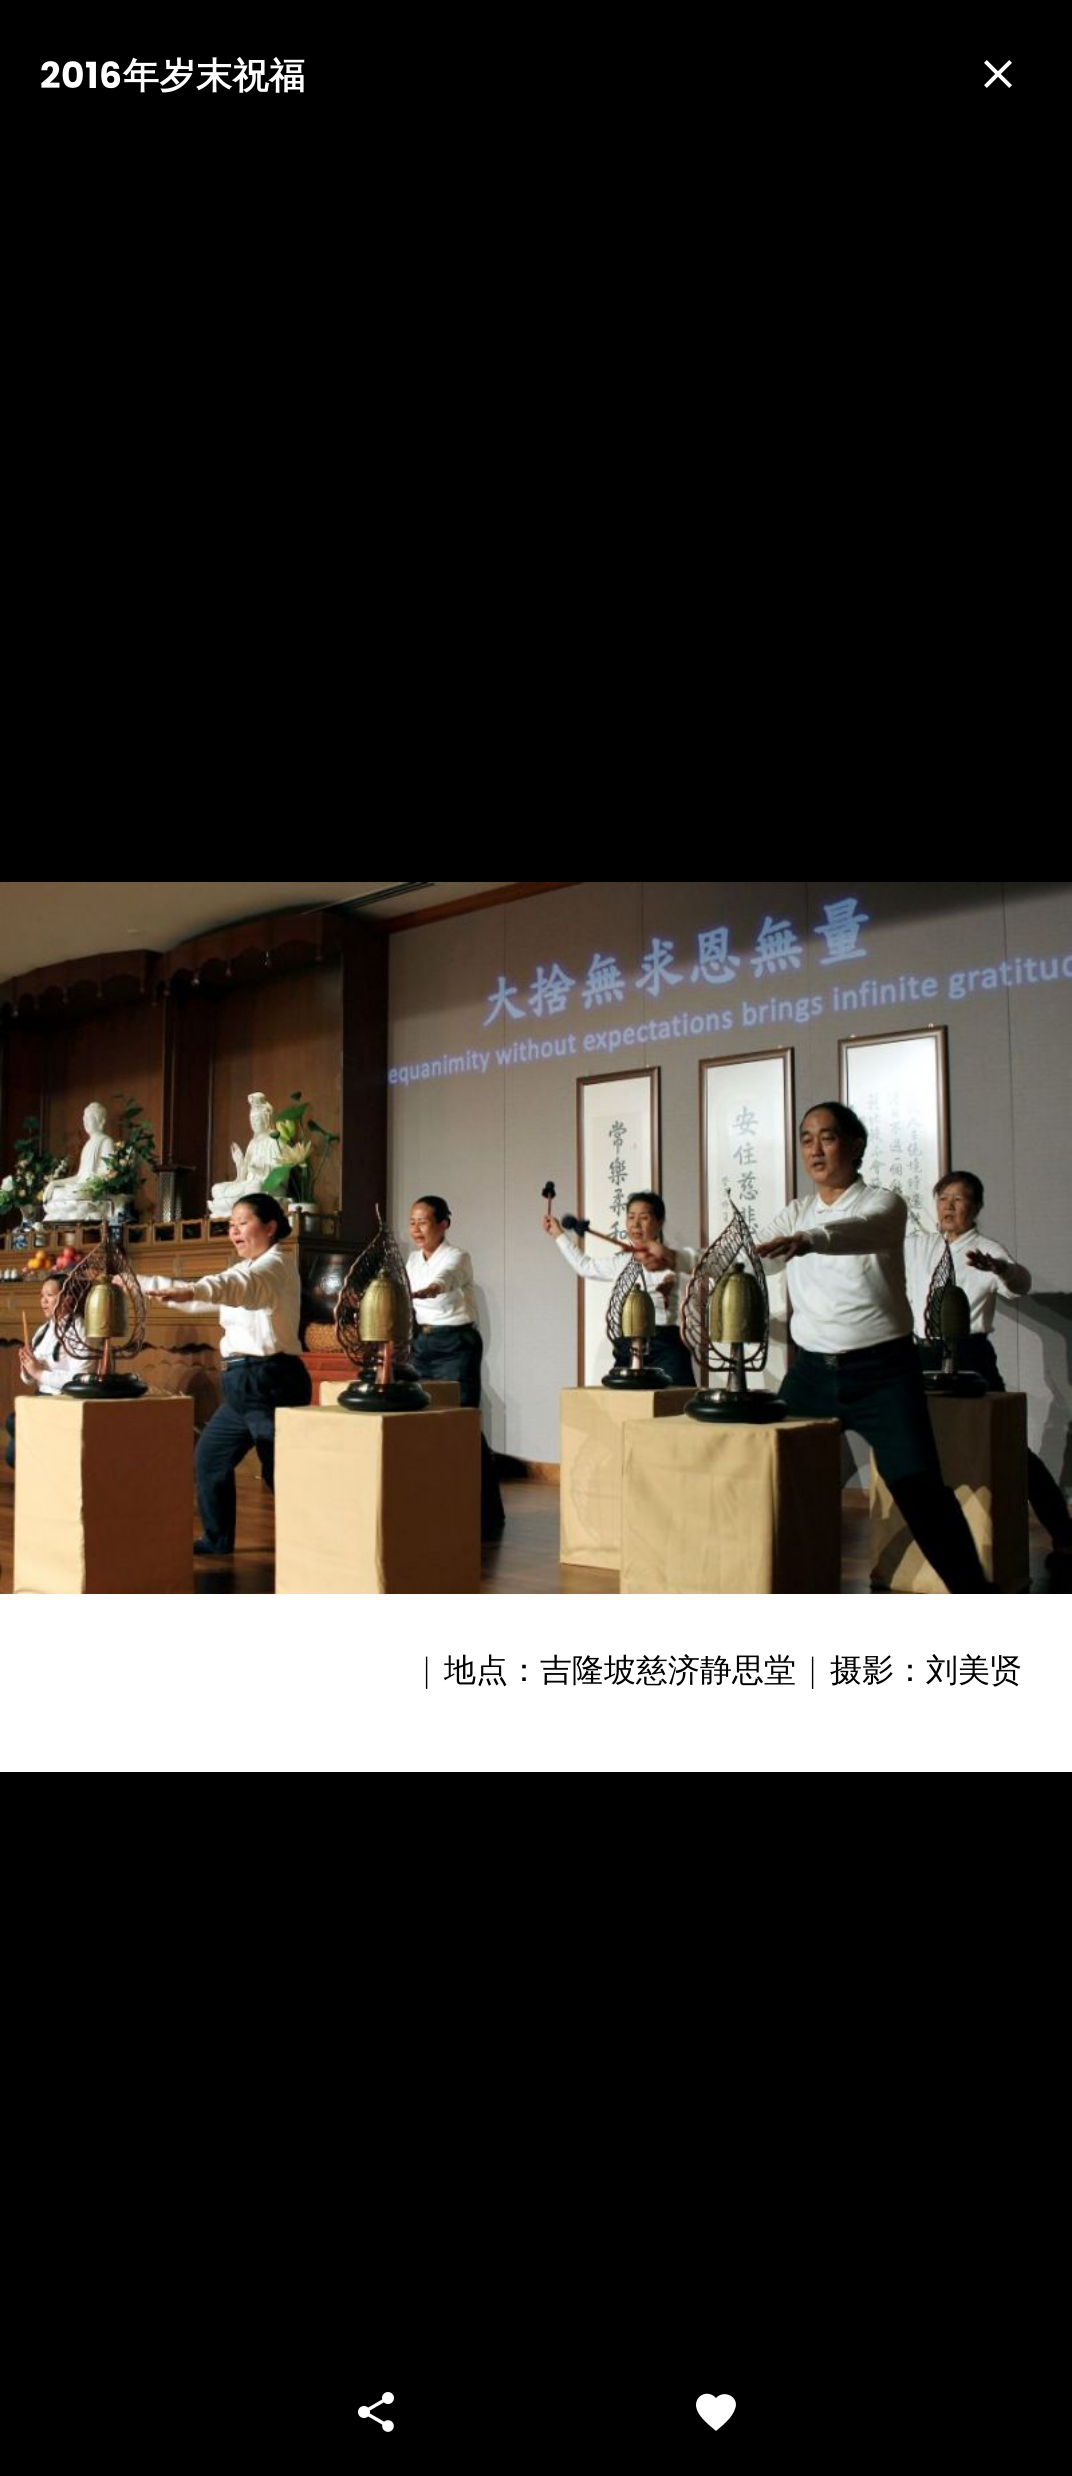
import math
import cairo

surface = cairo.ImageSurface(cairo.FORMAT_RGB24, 1072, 2476)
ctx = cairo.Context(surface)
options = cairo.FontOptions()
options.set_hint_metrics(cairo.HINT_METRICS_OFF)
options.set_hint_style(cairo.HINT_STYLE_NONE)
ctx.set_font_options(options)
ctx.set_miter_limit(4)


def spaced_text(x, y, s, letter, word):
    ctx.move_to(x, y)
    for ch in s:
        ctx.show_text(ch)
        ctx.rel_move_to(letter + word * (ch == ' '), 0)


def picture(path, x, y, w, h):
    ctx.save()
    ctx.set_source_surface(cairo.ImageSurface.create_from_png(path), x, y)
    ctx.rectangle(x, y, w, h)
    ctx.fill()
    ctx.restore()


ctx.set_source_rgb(0, 0, 0)
ctx.paint()
ctx.select_font_face("Poppins", cairo.FONT_SLANT_NORMAL, cairo.FONT_WEIGHT_BOLD)
ctx.set_font_size(36)
ctx.set_source_rgb(1, 1, 1)
spaced_text(40, 88, "2016", 0.5, 0)
ctx.select_font_face("WenQuanYi Zen Hei", cairo.FONT_SLANT_NORMAL, cairo.FONT_WEIGHT_BOLD)
spaced_text(123, 88, "年岁末祝福", 0.5, 0)
picture("img1.png", 984, 60, 28, 28)
picture("img2.png", 358, 2392, 36, 40)
ctx.new_path()
ctx.move_to(716, 2431)
ctx.curve_to(709, 2425, 700, 2418, 697, 2410)
ctx.curve_to(692, 2397, 707, 2388, 716, 2398)
ctx.curve_to(724, 2389, 740, 2397, 735, 2409)
ctx.curve_to(732, 2418, 723, 2425, 716, 2431)
ctx.close_path()
ctx.fill()
ctx.rectangle(0, 1594, 1072, 178)
ctx.fill()
picture("img3.png", 0, 882, 1072, 712)
ctx.select_font_face("Open Sans Light")
ctx.set_font_size(32)
ctx.set_source_rgb(0, 0, 0)
ctx.move_to(418, 1681)
ctx.show_text("|")
ctx.select_font_face("WenQuanYi Zen Hei Medium")
ctx.move_to(444, 1681)
ctx.show_text("地点：吉隆坡慈济静思堂")
ctx.select_font_face("Open Sans Light")
ctx.move_to(804, 1681)
ctx.show_text("|")
ctx.select_font_face("WenQuanYi Zen Hei Medium")
ctx.move_to(830, 1681)
ctx.show_text("摄影：刘美贤")
surface.write_to_png("page.png")
